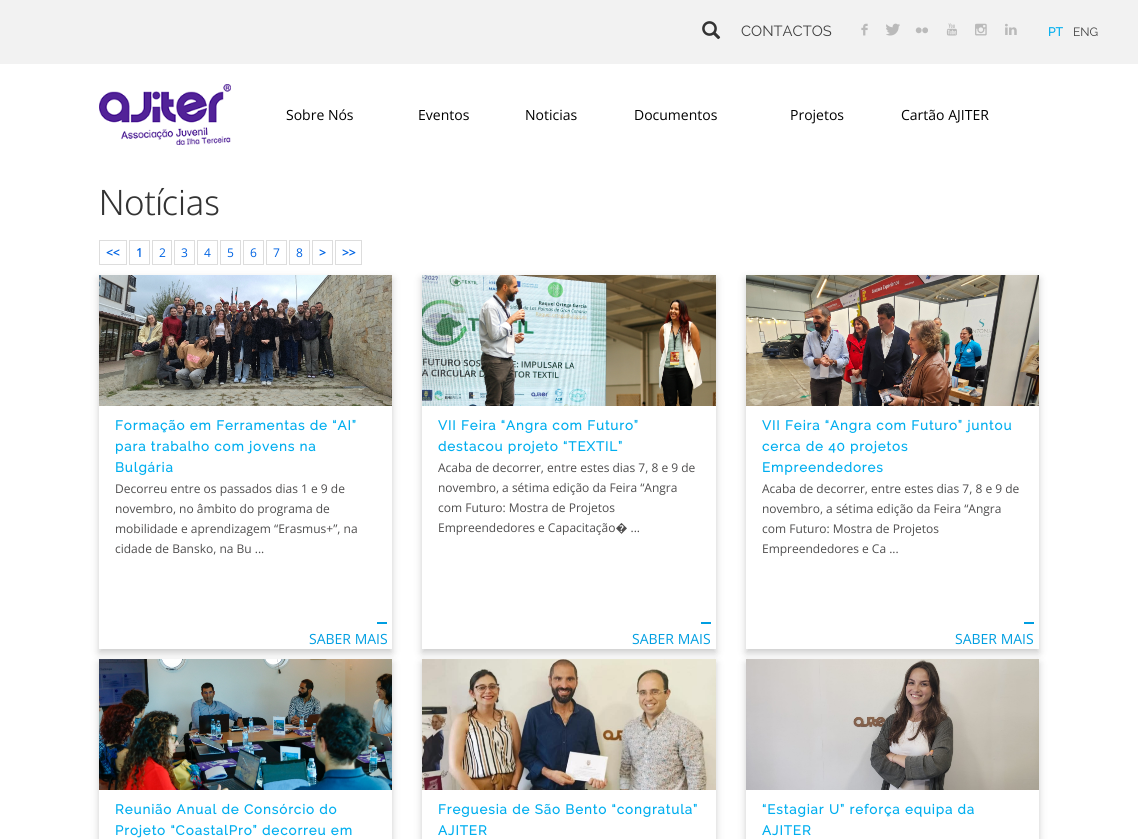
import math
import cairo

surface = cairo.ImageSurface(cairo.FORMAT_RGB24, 1138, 839)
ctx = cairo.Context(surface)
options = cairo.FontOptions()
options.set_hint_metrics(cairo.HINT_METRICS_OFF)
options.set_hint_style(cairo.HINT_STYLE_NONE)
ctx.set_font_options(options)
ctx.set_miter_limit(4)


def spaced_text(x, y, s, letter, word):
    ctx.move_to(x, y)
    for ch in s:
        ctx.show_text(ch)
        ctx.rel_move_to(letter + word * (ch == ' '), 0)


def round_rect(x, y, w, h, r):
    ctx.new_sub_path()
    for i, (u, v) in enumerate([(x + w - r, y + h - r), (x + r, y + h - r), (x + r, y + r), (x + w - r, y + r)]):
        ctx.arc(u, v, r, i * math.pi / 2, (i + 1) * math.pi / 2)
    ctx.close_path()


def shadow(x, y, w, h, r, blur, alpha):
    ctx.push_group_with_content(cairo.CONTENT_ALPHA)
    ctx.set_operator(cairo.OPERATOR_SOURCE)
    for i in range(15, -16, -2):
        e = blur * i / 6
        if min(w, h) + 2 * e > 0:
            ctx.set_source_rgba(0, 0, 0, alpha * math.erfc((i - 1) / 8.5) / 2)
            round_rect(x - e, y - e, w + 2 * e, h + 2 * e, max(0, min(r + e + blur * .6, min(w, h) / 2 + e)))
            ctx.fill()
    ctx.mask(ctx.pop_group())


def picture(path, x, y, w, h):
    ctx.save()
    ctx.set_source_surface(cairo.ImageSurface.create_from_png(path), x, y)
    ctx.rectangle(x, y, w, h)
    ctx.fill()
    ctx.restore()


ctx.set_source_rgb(1, 1, 1)
ctx.paint()
ctx.set_source_rgb(0.949, 0.949, 0.949)
ctx.rectangle(0, 0, 1138, 64)
ctx.fill()
picture("img1.png", 702, 21, 19, 19)
ctx.select_font_face("Raleway")
ctx.set_font_size(14.75)
ctx.set_source_rgb(0.247, 0.247, 0.247)
ctx.move_to(741, 36)
ctx.show_text("CONTACTOS")
picture("img2.png", 861, 23, 7, 13)
picture("img3.png", 886, 23, 14, 13)
picture("img4.png", 915, 27, 13, 7)
picture("img5.png", 946, 23, 11, 13)
picture("img6.png", 975, 23, 12, 13)
picture("img7.png", 1005, 23, 12, 12)
ctx.select_font_face("Raleway", cairo.FONT_SLANT_NORMAL, cairo.FONT_WEIGHT_BOLD)
ctx.set_font_size(12)
ctx.set_source_rgb(0, 0.682, 0.937)
ctx.move_to(1048, 36)
ctx.show_text("PT")
ctx.select_font_face("Raleway")
ctx.set_source_rgb(0.247, 0.247, 0.247)
ctx.move_to(1073, 36)
ctx.show_text("ENG")
picture("img8.png", 99, 84, 132, 61)
ctx.select_font_face("Open Sans")
ctx.set_font_size(14)
ctx.set_source_rgb(0, 0, 0)
ctx.move_to(286, 120)
ctx.show_text("Sobre Nós")
ctx.move_to(418, 120)
ctx.show_text("Eventos")
ctx.move_to(525, 120)
ctx.show_text("Noticias")
ctx.move_to(634, 120)
ctx.show_text("Documentos")
ctx.move_to(790, 120)
ctx.show_text("Projetos")
ctx.move_to(901, 120)
ctx.show_text("Cartão AJITER")
ctx.select_font_face("Oxygen Light")
ctx.set_font_size(34.5)
ctx.set_source_rgb(0.2, 0.2, 0.2)
ctx.move_to(99, 215)
ctx.show_text("Notícias")
ctx.rectangle(99.5, 240.5, 27, 24)
ctx.set_source_rgb(0.867, 0.867, 0.867)
ctx.set_line_width(1)
ctx.stroke()
ctx.select_font_face("Open Sans", cairo.FONT_SLANT_NORMAL, cairo.FONT_WEIGHT_BOLD)
ctx.set_font_size(12)
ctx.set_source_rgb(0, 0.388, 0.89)
ctx.move_to(106, 257)
ctx.show_text("<<")
ctx.rectangle(129.5, 240.5, 20, 24)
ctx.set_source_rgb(0.867, 0.867, 0.867)
ctx.stroke()
ctx.set_source_rgb(0, 0.388, 0.89)
ctx.move_to(136, 257)
ctx.show_text("1")
ctx.rectangle(152.5, 240.5, 19, 24)
ctx.set_source_rgb(0.867, 0.867, 0.867)
ctx.stroke()
ctx.select_font_face("Open Sans")
ctx.set_source_rgb(0, 0.388, 0.89)
ctx.move_to(159, 257)
ctx.show_text("2")
ctx.rectangle(174.5, 240.5, 20, 24)
ctx.set_source_rgb(0.867, 0.867, 0.867)
ctx.stroke()
ctx.set_source_rgb(0, 0.388, 0.89)
ctx.move_to(181, 257)
ctx.show_text("3")
ctx.rectangle(197.5, 240.5, 20, 24)
ctx.set_source_rgb(0.867, 0.867, 0.867)
ctx.stroke()
ctx.set_source_rgb(0, 0.388, 0.89)
ctx.move_to(204, 257)
ctx.show_text("4")
ctx.rectangle(220.5, 240.5, 20, 24)
ctx.set_source_rgb(0.867, 0.867, 0.867)
ctx.stroke()
ctx.set_source_rgb(0, 0.388, 0.89)
ctx.move_to(227, 257)
ctx.show_text("5")
ctx.rectangle(243.5, 240.5, 20, 24)
ctx.set_source_rgb(0.867, 0.867, 0.867)
ctx.stroke()
ctx.set_source_rgb(0, 0.388, 0.89)
ctx.move_to(250, 257)
ctx.show_text("6")
ctx.rectangle(266.5, 240.5, 20, 24)
ctx.set_source_rgb(0.867, 0.867, 0.867)
ctx.stroke()
ctx.set_source_rgb(0, 0.388, 0.89)
ctx.move_to(273, 257)
ctx.show_text("7")
ctx.rectangle(289.5, 240.5, 20, 24)
ctx.set_source_rgb(0.867, 0.867, 0.867)
ctx.stroke()
ctx.set_source_rgb(0, 0.388, 0.89)
ctx.move_to(296, 257)
ctx.show_text("8")
ctx.rectangle(312.5, 240.5, 20, 24)
ctx.set_source_rgb(0.867, 0.867, 0.867)
ctx.stroke()
ctx.select_font_face("Open Sans", cairo.FONT_SLANT_NORMAL, cairo.FONT_WEIGHT_BOLD)
ctx.set_source_rgb(0, 0.388, 0.89)
ctx.move_to(319, 257)
ctx.show_text(">")
ctx.rectangle(335.5, 240.5, 26, 24)
ctx.set_source_rgb(0.867, 0.867, 0.867)
ctx.stroke()
ctx.set_source_rgb(0, 0.388, 0.89)
ctx.move_to(342, 257)
ctx.show_text(">>")
ctx.save()
ctx.set_fill_rule(cairo.FILL_RULE_EVEN_ODD)
ctx.new_path()
ctx.move_to(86, 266)
ctx.line_to(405, 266)
ctx.line_to(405, 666)
ctx.line_to(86, 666)
ctx.close_path()
ctx.move_to(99, 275)
ctx.line_to(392, 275)
ctx.line_to(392, 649)
ctx.line_to(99, 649)
ctx.close_path()
ctx.clip()
ctx.set_source_rgb(0, 0, 0)
shadow(99, 279, 293, 374, 0, 4, 0.2)
ctx.restore()
picture("img9.png", 99, 275, 293, 131)
ctx.select_font_face("Raleway", cairo.FONT_SLANT_NORMAL, cairo.FONT_WEIGHT_BOLD)
ctx.set_font_size(13.3)
ctx.set_source_rgb(0, 0.682, 0.937)
spaced_text(115, 430, "Formação em Ferramentas de “AI”", 1, 0)
spaced_text(115, 451, "para trabalho com jovens na", 1, 0)
spaced_text(115, 472, "Bulgária", 1, 0)
ctx.select_font_face("Open Sans")
ctx.set_font_size(12)
ctx.set_source_rgb(0.306, 0.302, 0.302)
ctx.move_to(115, 493)
ctx.show_text("Decorreu entre os passados dias 1 e 9 de")
ctx.move_to(115, 513)
ctx.show_text("novembro, no âmbito do programa de")
ctx.move_to(115, 533)
ctx.show_text("mobilidade e aprendizagem “Erasmus+”, na")
ctx.move_to(115, 553)
ctx.show_text("cidade de Bansko, na Bu ...")
ctx.set_source_rgb(0, 0.62, 0.882)
ctx.rectangle(377, 622, 10, 2)
ctx.fill()
ctx.set_font_size(14)
ctx.move_to(309, 644)
ctx.show_text("SABER MAIS")
ctx.save()
ctx.set_fill_rule(cairo.FILL_RULE_EVEN_ODD)
ctx.new_path()
ctx.move_to(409, 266)
ctx.line_to(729, 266)
ctx.line_to(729, 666)
ctx.line_to(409, 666)
ctx.close_path()
ctx.move_to(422, 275)
ctx.line_to(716, 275)
ctx.line_to(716, 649)
ctx.line_to(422, 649)
ctx.close_path()
ctx.clip()
ctx.set_source_rgb(0, 0, 0)
shadow(422, 279, 294, 374, 0, 4, 0.2)
ctx.restore()
picture("img10.png", 422, 275, 294, 131)
ctx.select_font_face("Raleway", cairo.FONT_SLANT_NORMAL, cairo.FONT_WEIGHT_BOLD)
ctx.set_font_size(13.3)
ctx.set_source_rgb(0, 0.682, 0.937)
spaced_text(438, 430, "VII Feira “Angra com Futuro”", 1, 0)
spaced_text(438, 451, "destacou projeto “TEXTIL”", 1, 0)
ctx.select_font_face("Open Sans")
ctx.set_font_size(12)
ctx.set_source_rgb(0.306, 0.302, 0.302)
ctx.move_to(438, 472)
ctx.show_text("Acaba de decorrer, entre estes dias 7, 8 e 9 de")
ctx.move_to(438, 492)
ctx.show_text("novembro, a sétima edição da Feira “Angra")
ctx.move_to(438, 512)
ctx.show_text("com Futuro: Mostra de Projetos")
ctx.move_to(438, 532)
ctx.show_text("Empreendedores e Capacitação� ...")
ctx.set_source_rgb(0, 0.62, 0.882)
ctx.rectangle(701, 622, 10, 2)
ctx.fill()
ctx.set_font_size(14)
ctx.move_to(632, 644)
ctx.show_text("SABER MAIS")
ctx.save()
ctx.set_fill_rule(cairo.FILL_RULE_EVEN_ODD)
ctx.new_path()
ctx.move_to(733, 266)
ctx.line_to(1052, 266)
ctx.line_to(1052, 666)
ctx.line_to(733, 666)
ctx.close_path()
ctx.move_to(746, 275)
ctx.line_to(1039, 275)
ctx.line_to(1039, 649)
ctx.line_to(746, 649)
ctx.close_path()
ctx.clip()
ctx.set_source_rgb(0, 0, 0)
shadow(746, 279, 293, 374, 0, 4, 0.2)
ctx.restore()
picture("img11.png", 746, 275, 293, 131)
ctx.select_font_face("Raleway", cairo.FONT_SLANT_NORMAL, cairo.FONT_WEIGHT_BOLD)
ctx.set_font_size(13.3)
ctx.set_source_rgb(0, 0.682, 0.937)
spaced_text(762, 430, "VII Feira “Angra com Futuro” juntou", 1, 0)
spaced_text(762, 451, "cerca de 40 projetos", 1, 0)
spaced_text(762, 472, "Empreendedores", 1, 0)
ctx.select_font_face("Open Sans")
ctx.set_font_size(12)
ctx.set_source_rgb(0.306, 0.302, 0.302)
ctx.move_to(762, 493)
ctx.show_text("Acaba de decorrer, entre estes dias 7, 8 e 9 de")
ctx.move_to(762, 513)
ctx.show_text("novembro, a sétima edição da Feira “Angra")
ctx.move_to(762, 533)
ctx.show_text("com Futuro: Mostra de Projetos")
ctx.move_to(762, 553)
ctx.show_text("Empreendedores e Ca ...")
ctx.set_source_rgb(0, 0.62, 0.882)
ctx.rectangle(1024, 622, 10, 2)
ctx.fill()
ctx.set_font_size(14)
ctx.move_to(955, 644)
ctx.show_text("SABER MAIS")
ctx.save()
ctx.set_fill_rule(cairo.FILL_RULE_EVEN_ODD)
ctx.new_path()
ctx.move_to(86, 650)
ctx.line_to(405, 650)
ctx.line_to(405, 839)
ctx.line_to(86, 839)
ctx.close_path()
ctx.move_to(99, 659)
ctx.line_to(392, 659)
ctx.line_to(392, 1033)
ctx.line_to(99, 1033)
ctx.close_path()
ctx.clip()
ctx.set_source_rgb(0, 0, 0)
shadow(99, 663, 293, 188, 0, 4, 0.2)
ctx.restore()
picture("img12.png", 99, 659, 293, 131)
ctx.select_font_face("Raleway", cairo.FONT_SLANT_NORMAL, cairo.FONT_WEIGHT_BOLD)
ctx.set_font_size(13.3)
ctx.set_source_rgb(0, 0.682, 0.937)
spaced_text(115, 814, "Reunião Anual de Consórcio do", 1, 0)
spaced_text(115, 835, "Projeto “CoastalPro” decorreu em", 1, 0)
ctx.save()
ctx.set_fill_rule(cairo.FILL_RULE_EVEN_ODD)
ctx.new_path()
ctx.move_to(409, 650)
ctx.line_to(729, 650)
ctx.line_to(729, 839)
ctx.line_to(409, 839)
ctx.close_path()
ctx.move_to(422, 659)
ctx.line_to(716, 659)
ctx.line_to(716, 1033)
ctx.line_to(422, 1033)
ctx.close_path()
ctx.clip()
ctx.set_source_rgb(0, 0, 0)
shadow(422, 663, 294, 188, 0, 4, 0.2)
ctx.restore()
picture("img13.png", 422, 659, 294, 131)
spaced_text(438, 814, "Freguesia de São Bento “congratula”", 1, 0)
spaced_text(438, 835, "AJITER", 1, 0)
ctx.save()
ctx.set_fill_rule(cairo.FILL_RULE_EVEN_ODD)
ctx.new_path()
ctx.move_to(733, 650)
ctx.line_to(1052, 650)
ctx.line_to(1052, 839)
ctx.line_to(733, 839)
ctx.close_path()
ctx.move_to(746, 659)
ctx.line_to(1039, 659)
ctx.line_to(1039, 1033)
ctx.line_to(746, 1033)
ctx.close_path()
ctx.clip()
ctx.set_source_rgb(0, 0, 0)
shadow(746, 663, 293, 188, 0, 4, 0.2)
ctx.restore()
picture("img14.png", 746, 659, 293, 131)
spaced_text(762, 814, "“Estagiar U” reforça equipa da", 1, 0)
spaced_text(762, 835, "AJITER", 1, 0)
surface.write_to_png("page.png")
